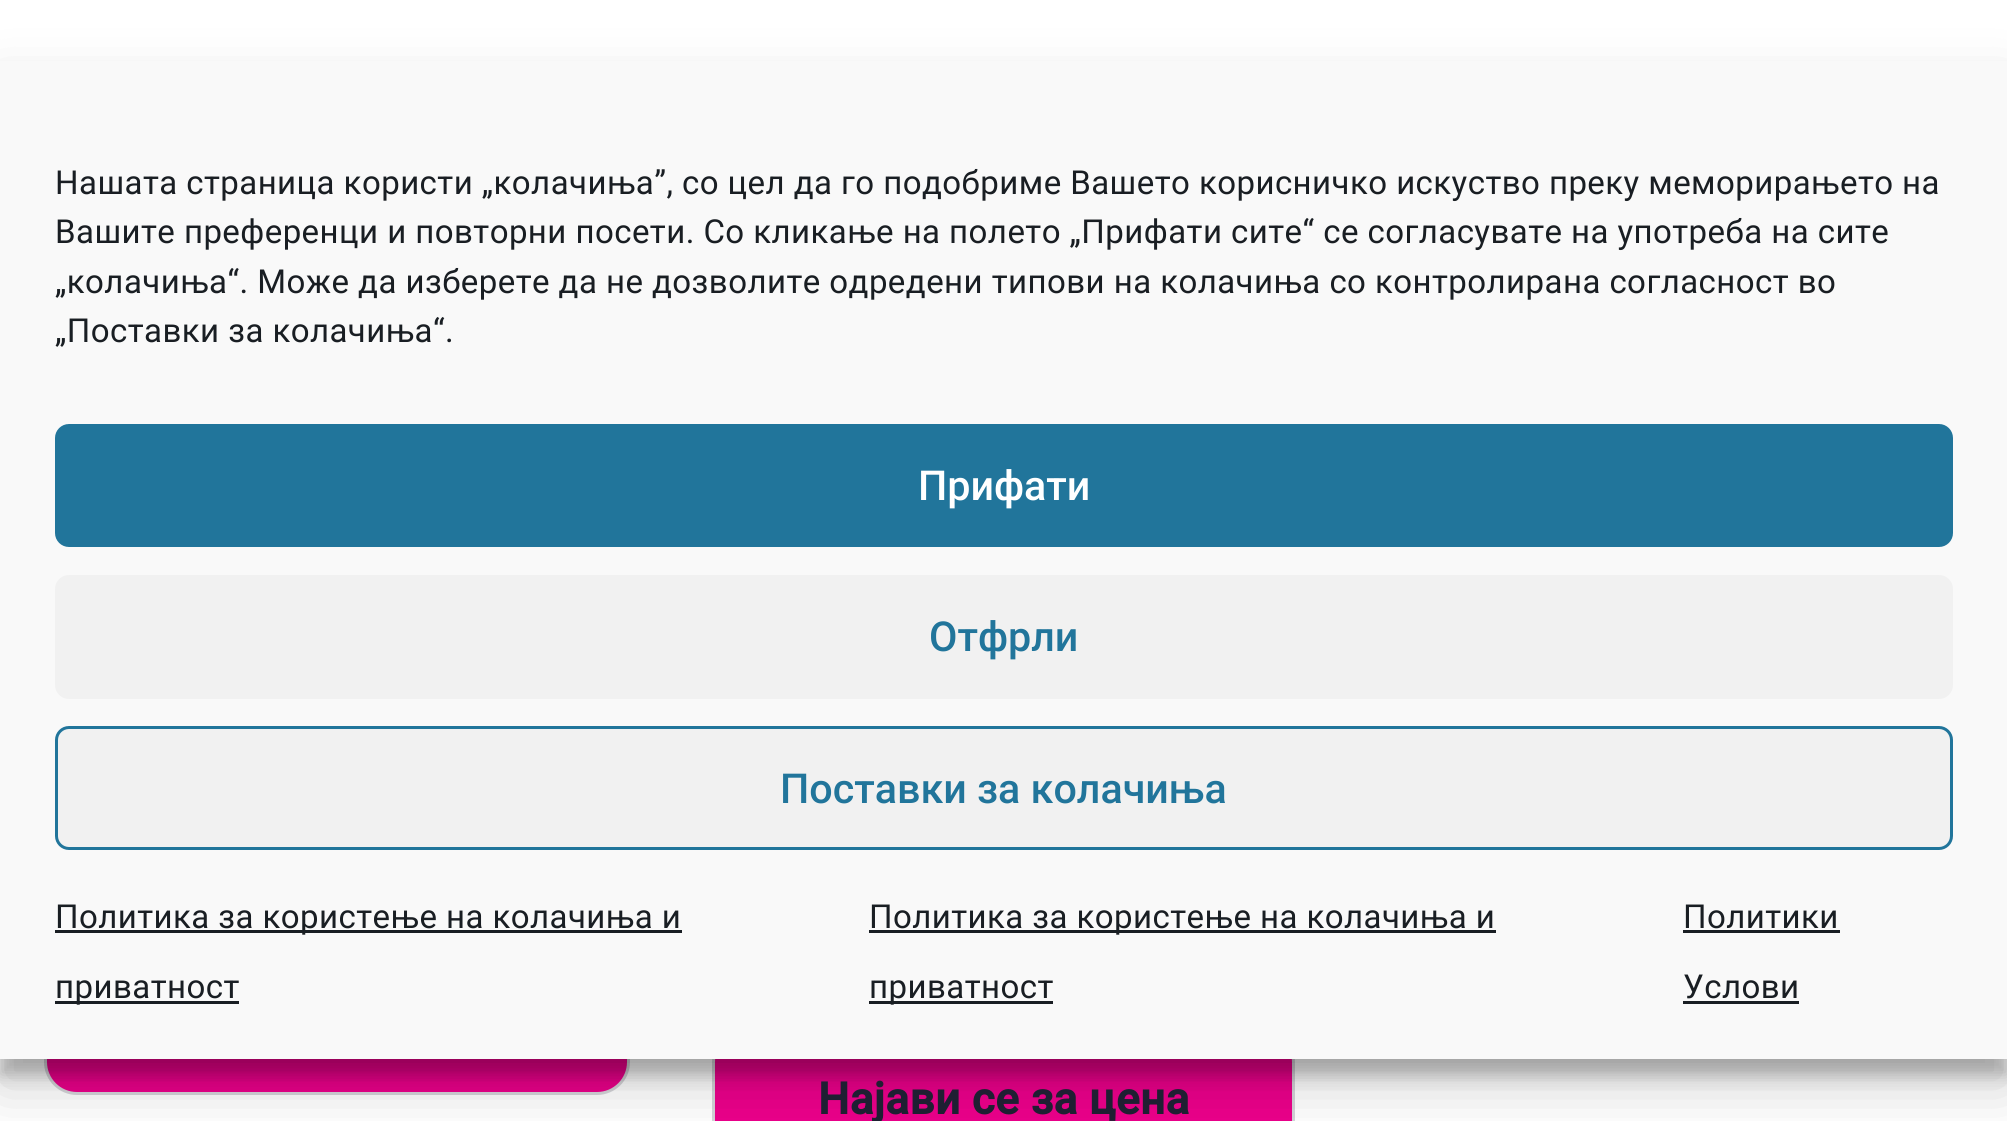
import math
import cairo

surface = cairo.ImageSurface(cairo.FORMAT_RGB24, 2007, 1121)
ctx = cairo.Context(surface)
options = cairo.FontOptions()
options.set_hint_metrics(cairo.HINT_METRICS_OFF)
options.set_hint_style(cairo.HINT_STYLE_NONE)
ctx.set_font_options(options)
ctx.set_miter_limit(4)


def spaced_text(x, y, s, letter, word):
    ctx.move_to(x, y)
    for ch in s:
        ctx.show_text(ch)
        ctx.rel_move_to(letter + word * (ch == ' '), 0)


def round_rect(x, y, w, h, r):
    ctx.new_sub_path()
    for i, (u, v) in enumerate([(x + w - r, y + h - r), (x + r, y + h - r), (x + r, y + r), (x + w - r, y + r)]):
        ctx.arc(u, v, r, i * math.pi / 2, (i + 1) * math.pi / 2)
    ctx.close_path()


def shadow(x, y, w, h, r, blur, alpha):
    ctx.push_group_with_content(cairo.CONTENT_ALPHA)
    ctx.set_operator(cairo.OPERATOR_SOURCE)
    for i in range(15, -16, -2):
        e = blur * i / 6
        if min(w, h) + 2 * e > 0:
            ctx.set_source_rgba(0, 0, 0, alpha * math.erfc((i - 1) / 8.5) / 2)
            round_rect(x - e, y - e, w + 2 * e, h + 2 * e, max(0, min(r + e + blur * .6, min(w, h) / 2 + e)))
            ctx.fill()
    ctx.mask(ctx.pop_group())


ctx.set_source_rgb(1, 1, 1)
ctx.paint()
ctx.set_source_rgb(0.925, 0, 0.545)
round_rect(45.5, 950.5, 583, 143, 31.5)
ctx.fill_preserve()
ctx.set_source_rgb(0.831, 0.831, 0.847)
ctx.set_line_width(3)
ctx.stroke()
ctx.set_source_rgb(0.925, 0, 0.545)
round_rect(713.5, 1030.5, 580, 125, 31.5)
ctx.fill_preserve()
ctx.set_source_rgb(0.831, 0.831, 0.847)
ctx.stroke()
ctx.set_source_rgb(0, 0, 0)
shadow(0, 77, 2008, 998, 0, 8, 0.23)
shadow(0, 88, 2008, 998, 0, 27.5, 0.19)
ctx.set_source_rgb(0.976, 0.976, 0.976)
ctx.rectangle(0, 61, 2007, 998)
ctx.fill()
ctx.select_font_face("Roboto")
ctx.set_font_size(33)
ctx.set_source_rgb(0.098, 0.118, 0.137)
spaced_text(55, 194, "Нашата страница користи „колачиња”, со цел да го подобриме Вашето корисничко искуство преку меморирањето на", 0.44, 0)
spaced_text(55, 243, "Вашите преференци и повторни посети. Со кликање на полето „Прифати сите“ се согласувате на употреба на сите", 0.44, 0)
spaced_text(55, 293, "„колачиња“. Може да изберете да не дозволите одредени типови на колачиња со контролирана согласност во", 0.44, 0)
spaced_text(55, 342, "„Поставки за колачиња“.", 0.44, 0)
ctx.set_source_rgb(0.129, 0.459, 0.608)
round_rect(56.5, 425.5, 1895, 120, 12.5)
ctx.fill_preserve()
ctx.stroke()
ctx.select_font_face("Roboto Medium")
ctx.set_font_size(41.25)
ctx.set_source_rgb(1, 1, 1)
ctx.move_to(918, 500)
ctx.show_text("Прифати")
ctx.set_source_rgb(0.945, 0.945, 0.945)
round_rect(55, 575, 1898, 124, 14)
ctx.fill()
ctx.set_source_rgb(0.129, 0.459, 0.608)
ctx.move_to(929, 651)
ctx.show_text("Отфрли")
ctx.set_source_rgb(0.945, 0.945, 0.945)
round_rect(56.5, 727.5, 1895, 121, 12.5)
ctx.fill_preserve()
ctx.set_source_rgb(0.129, 0.459, 0.608)
ctx.stroke()
ctx.move_to(780, 803)
ctx.show_text("Поставки за колачиња")
ctx.set_source_rgb(0.098, 0.118, 0.137)
ctx.rectangle(55, 930, 627, 3)
ctx.fill()
ctx.select_font_face("Roboto")
ctx.set_font_size(33)
spaced_text(55, 928, "Политика за користење на колачиња и", 0.44, 0)
ctx.rectangle(55, 1001, 184, 3)
ctx.fill()
spaced_text(55, 998, "приватност", 0.44, 0)
ctx.rectangle(869, 930, 627, 3)
ctx.fill()
spaced_text(869, 928, "Политика за користење на колачиња и", 0.44, 0)
ctx.rectangle(869, 1001, 184, 3)
ctx.fill()
spaced_text(869, 998, "приватност", 0.44, 0)
spaced_text(1683, 928, "Политики", 0.44, 0)
ctx.rectangle(1683, 930, 157, 3)
ctx.fill()
spaced_text(1683, 998, "Услови", 0.44, 0)
ctx.rectangle(1683, 1001, 116, 3)
ctx.fill()
ctx.select_font_face("Roboto", cairo.FONT_SLANT_NORMAL, cairo.FONT_WEIGHT_BOLD)
ctx.set_font_size(44)
ctx.set_source_rgb(0.122, 0.122, 0.196)
spaced_text(818, 1114, "Најави се за цена", 0.44, 0)
surface.write_to_png("page.png")
